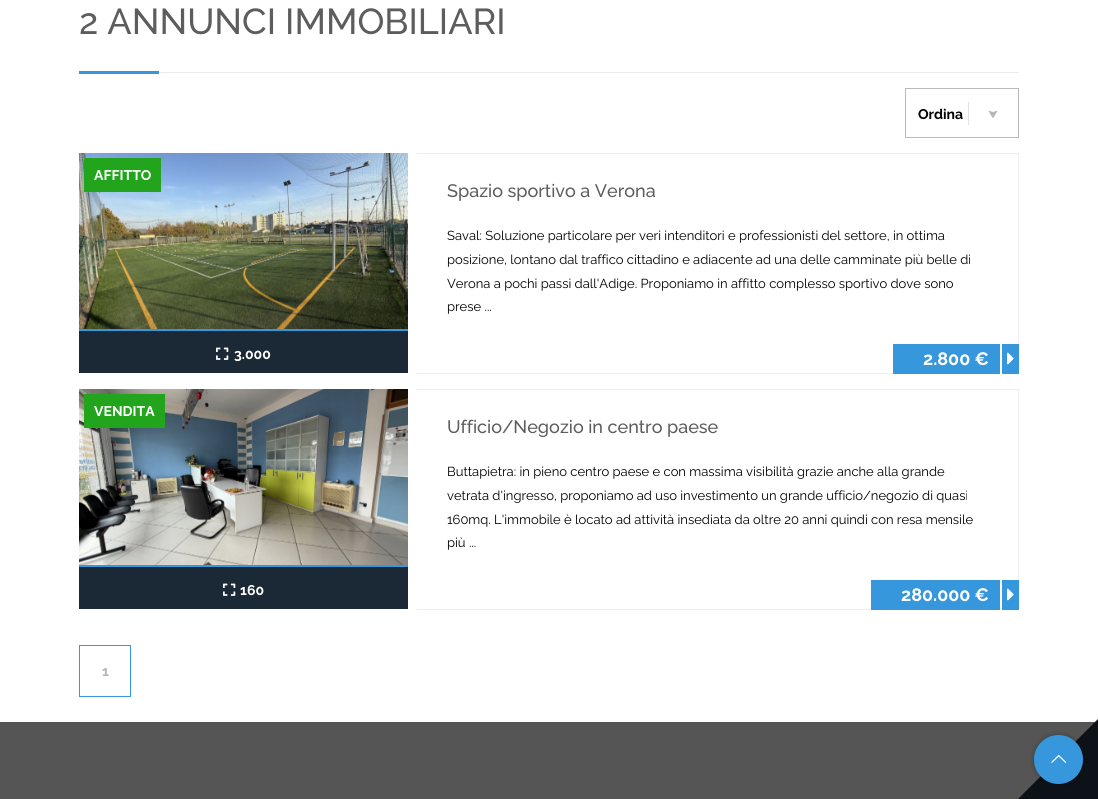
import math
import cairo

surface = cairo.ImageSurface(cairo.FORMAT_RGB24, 1098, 799)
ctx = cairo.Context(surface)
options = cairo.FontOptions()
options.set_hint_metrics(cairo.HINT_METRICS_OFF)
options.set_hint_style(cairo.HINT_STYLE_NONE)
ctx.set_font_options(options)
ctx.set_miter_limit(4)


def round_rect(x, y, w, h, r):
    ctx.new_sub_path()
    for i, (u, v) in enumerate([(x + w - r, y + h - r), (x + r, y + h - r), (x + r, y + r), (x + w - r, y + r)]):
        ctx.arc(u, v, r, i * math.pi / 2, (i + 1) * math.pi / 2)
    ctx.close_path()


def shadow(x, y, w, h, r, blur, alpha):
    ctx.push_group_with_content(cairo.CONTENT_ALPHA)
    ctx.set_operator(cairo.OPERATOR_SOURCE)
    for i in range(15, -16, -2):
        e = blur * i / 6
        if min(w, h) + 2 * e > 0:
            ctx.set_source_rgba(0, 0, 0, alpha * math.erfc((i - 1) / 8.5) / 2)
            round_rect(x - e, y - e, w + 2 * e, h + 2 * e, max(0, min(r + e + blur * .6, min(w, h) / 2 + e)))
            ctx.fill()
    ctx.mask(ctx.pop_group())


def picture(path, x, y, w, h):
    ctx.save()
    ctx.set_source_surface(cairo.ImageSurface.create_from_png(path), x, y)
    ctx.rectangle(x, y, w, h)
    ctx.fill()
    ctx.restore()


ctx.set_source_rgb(1, 1, 1)
ctx.paint()
ctx.select_font_face("Raleway Medium")
ctx.set_font_size(36)
ctx.set_source_rgb(0.365, 0.365, 0.365)
ctx.move_to(79, 34)
ctx.show_text("2 ANNUNCI IMMOBILIARI")
ctx.set_source_rgb(0.922, 0.922, 0.922)
ctx.rectangle(159, 72, 860, 1)
ctx.fill()
ctx.set_source_rgb(0.216, 0.592, 0.867)
ctx.rectangle(79, 71, 80, 3)
ctx.fill()
ctx.rectangle(905.5, 88.5, 113, 49)
ctx.set_source_rgb(0.733, 0.733, 0.733)
ctx.set_line_width(1)
ctx.stroke()
ctx.select_font_face("Raleway", cairo.FONT_SLANT_NORMAL, cairo.FONT_WEIGHT_BOLD)
ctx.set_font_size(14)
ctx.set_source_rgb(0, 0, 0)
ctx.move_to(918, 119)
ctx.show_text("Ordina")
picture("img1.png", 968, 102, 30, 23)
picture("img2.png", 79, 153, 329, 176)
ctx.set_source_rgb(0.216, 0.592, 0.867)
ctx.rectangle(79, 329, 329, 2)
ctx.fill()
ctx.set_source_rgb(0.133, 0.643, 0.11)
ctx.rectangle(84, 158, 77, 34)
ctx.fill()
ctx.set_source_rgb(1, 1, 1)
ctx.move_to(94, 180)
ctx.show_text("AFFITTO")
ctx.set_source_rgb(0.106, 0.157, 0.208)
ctx.rectangle(79, 331, 329, 42)
ctx.fill()
picture("img3.png", 216, 347, 13, 13)
ctx.set_source_rgb(1, 1, 1)
ctx.move_to(234, 359)
ctx.show_text("3.000")
ctx.set_source_rgb(0.933, 0.933, 0.933)
ctx.rectangle(417, 153, 602, 1)
ctx.fill()
ctx.rectangle(1018, 153, 1, 191)
ctx.fill()
ctx.rectangle(417, 373, 476, 1)
ctx.fill()
ctx.select_font_face("Raleway Medium")
ctx.set_font_size(18)
ctx.set_source_rgb(0.365, 0.365, 0.365)
ctx.move_to(447, 197)
ctx.show_text("Spazio sportivo a Verona")
ctx.select_font_face("Raleway")
ctx.set_font_size(13)
ctx.set_source_rgb(0, 0, 0)
ctx.move_to(447, 240)
ctx.show_text("Saval: Soluzione particolare per veri intenditori e professionisti del settore, in ottima")
ctx.move_to(447, 264)
ctx.show_text("posizione, lontano dal traffico cittadino e adiacente ad una delle camminate più belle di")
ctx.move_to(447, 288)
ctx.show_text("Verona a pochi passi dall'Adige. Proponiamo in affitto complesso sportivo dove sono")
ctx.move_to(447, 311)
ctx.show_text("prese ...")
ctx.set_source_rgb(0.216, 0.592, 0.867)
ctx.rectangle(893, 344, 126, 30)
ctx.fill()
ctx.select_font_face("Raleway", cairo.FONT_SLANT_NORMAL, cairo.FONT_WEIGHT_BOLD)
ctx.set_font_size(18)
ctx.set_source_rgb(1, 1, 1)
ctx.move_to(923, 365)
ctx.show_text("2.800 €")
ctx.rectangle(1000, 344, 2, 30)
ctx.fill()
picture("img4.png", 1007, 352, 7, 13)
picture("img5.png", 79, 389, 329, 176)
ctx.set_source_rgb(0.216, 0.592, 0.867)
ctx.rectangle(79, 565, 329, 2)
ctx.fill()
ctx.set_source_rgb(0.133, 0.643, 0.11)
ctx.rectangle(84, 394, 81, 34)
ctx.fill()
ctx.set_font_size(14)
ctx.set_source_rgb(1, 1, 1)
ctx.move_to(94, 416)
ctx.show_text("VENDITA")
ctx.set_source_rgb(0.106, 0.157, 0.208)
ctx.rectangle(79, 567, 329, 42)
ctx.fill()
picture("img3.png", 223, 583, 13, 13)
ctx.set_source_rgb(1, 1, 1)
ctx.move_to(240, 595)
ctx.show_text("160")
ctx.set_source_rgb(0.933, 0.933, 0.933)
ctx.rectangle(417, 389, 602, 1)
ctx.fill()
ctx.rectangle(1018, 389, 1, 191)
ctx.fill()
ctx.rectangle(417, 609, 454, 1)
ctx.fill()
ctx.select_font_face("Raleway Medium")
ctx.set_font_size(18)
ctx.set_source_rgb(0.365, 0.365, 0.365)
ctx.move_to(447, 433)
ctx.show_text("Ufficio/Negozio in centro paese")
ctx.select_font_face("Raleway")
ctx.set_font_size(13)
ctx.set_source_rgb(0, 0, 0)
ctx.move_to(447, 476)
ctx.show_text("Buttapietra: in pieno centro paese e con massima visibilità grazie anche alla grande")
ctx.move_to(447, 500)
ctx.show_text("vetrata d'ingresso, proponiamo ad uso investimento un grande ufficio/negozio di quasi")
ctx.move_to(447, 524)
ctx.show_text("160mq. L'immobile è locato ad attività insediata da oltre 20 anni quindi con resa mensile")
ctx.move_to(447, 547)
ctx.show_text("più ...")
ctx.set_source_rgb(0.216, 0.592, 0.867)
ctx.rectangle(871, 580, 148, 30)
ctx.fill()
ctx.select_font_face("Raleway", cairo.FONT_SLANT_NORMAL, cairo.FONT_WEIGHT_BOLD)
ctx.set_font_size(18)
ctx.set_source_rgb(1, 1, 1)
ctx.move_to(901, 601)
ctx.show_text("280.000 €")
ctx.rectangle(1000, 580, 2, 30)
ctx.fill()
picture("img4.png", 1007, 588, 7, 13)
ctx.rectangle(79.5, 645.5, 51, 51)
ctx.set_source_rgb(0.216, 0.592, 0.867)
ctx.stroke()
ctx.set_font_size(14)
ctx.set_source_rgb(0.718, 0.718, 0.718)
ctx.move_to(102, 676)
ctx.show_text("1")
ctx.set_source_rgb(0.333, 0.333, 0.333)
ctx.rectangle(0, 722, 1095, 77)
ctx.fill()
ctx.set_source_rgb(0.047, 0.071, 0.094)
ctx.new_path()
ctx.move_to(1098, 799)
ctx.line_to(1018, 799)
ctx.line_to(1098, 719)
ctx.close_path()
ctx.fill()
ctx.set_source_rgb(0, 0, 0)
shadow(1034, 735, 49, 49, 24.5, 2.5, 0.3)
ctx.set_source_rgb(0.216, 0.592, 0.867)
ctx.arc(1058.5, 759.5, 24.5, 0, 2 * math.pi)
ctx.fill()
picture("img6.png", 1051, 755, 16, 8)
surface.write_to_png("page.png")
